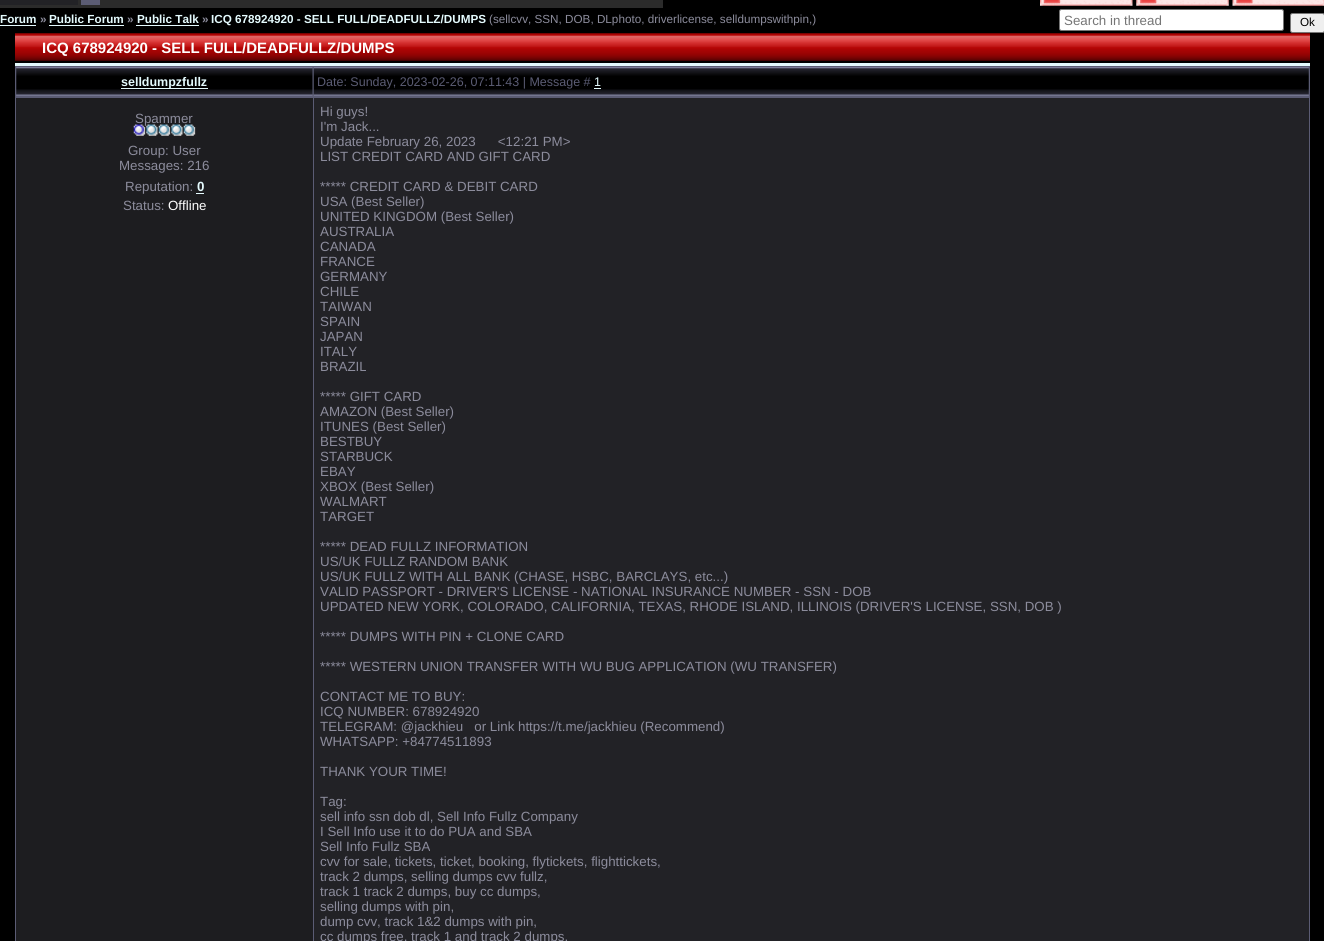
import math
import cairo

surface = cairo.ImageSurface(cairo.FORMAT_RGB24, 1324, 941)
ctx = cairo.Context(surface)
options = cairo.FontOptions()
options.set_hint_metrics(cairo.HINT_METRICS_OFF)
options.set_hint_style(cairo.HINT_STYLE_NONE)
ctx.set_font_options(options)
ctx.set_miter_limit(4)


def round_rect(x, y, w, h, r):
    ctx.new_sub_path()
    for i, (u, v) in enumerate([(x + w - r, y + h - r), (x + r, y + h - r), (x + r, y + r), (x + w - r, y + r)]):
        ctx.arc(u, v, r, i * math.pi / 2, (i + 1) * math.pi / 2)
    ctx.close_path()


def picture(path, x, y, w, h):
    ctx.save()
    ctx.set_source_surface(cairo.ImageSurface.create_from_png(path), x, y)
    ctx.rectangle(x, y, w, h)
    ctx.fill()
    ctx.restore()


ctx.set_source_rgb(0, 0, 0)
ctx.paint()
ctx.set_source_rgb(0.169, 0.169, 0.169)
ctx.rectangle(0, 0, 663, 8)
ctx.fill()
ctx.set_source_rgb(0.133, 0.133, 0.149)
ctx.rectangle(0, 0, 78, 5)
ctx.fill()
ctx.set_source_rgb(0.357, 0.361, 0.455)
ctx.rectangle(81, 0, 19, 5)
ctx.fill()
picture("img1.png", 1040, 0, 93, 6)
picture("img2.png", 1136, 0, 93, 6)
picture("img3.png", 1232, 0, 92, 6)
ctx.select_font_face("Liberation Sans", cairo.FONT_SLANT_NORMAL, cairo.FONT_WEIGHT_BOLD)
ctx.set_font_size(11.7)
ctx.set_source_rgb(0.894, 0.98, 0.992)
ctx.move_to(0, 23)
ctx.show_text("Forum")
ctx.rectangle(0, 25, 36, 1)
ctx.fill()
ctx.set_source_rgb(0.549, 0.549, 0.612)
ctx.move_to(40, 23)
ctx.show_text("»")
ctx.set_source_rgb(0.894, 0.98, 0.992)
ctx.move_to(49, 23)
ctx.show_text("Public Forum")
ctx.rectangle(49, 25, 75, 1)
ctx.fill()
ctx.set_source_rgb(0.549, 0.549, 0.612)
ctx.move_to(127, 23)
ctx.show_text("»")
ctx.set_source_rgb(0.894, 0.98, 0.992)
ctx.move_to(137, 23)
ctx.show_text("Public Talk")
ctx.rectangle(136, 25, 63, 1)
ctx.fill()
ctx.set_source_rgb(0.549, 0.549, 0.612)
ctx.move_to(202, 23)
ctx.show_text("»")
ctx.set_source_rgb(0.894, 0.98, 0.992)
ctx.move_to(211, 23)
ctx.show_text("ICQ 678924920 - SELL FULL/DEADFULLZ/DUMPS")
ctx.select_font_face("Liberation Sans")
ctx.set_source_rgb(0.549, 0.549, 0.612)
ctx.move_to(489, 23)
ctx.show_text("(sellcvv, SSN, DOB, DLphoto, driverlicense, selldumpswithpin,)")
ctx.set_source_rgb(1, 1, 1)
round_rect(1059.5, 9.5, 224, 21, 2)
ctx.fill_preserve()
ctx.set_source_rgb(0.463, 0.463, 0.463)
ctx.set_line_width(1)
ctx.stroke()
ctx.set_font_size(13.33)
ctx.set_source_rgb(0.459, 0.459, 0.459)
ctx.move_to(1064, 25)
ctx.show_text("Search in thread")
ctx.set_source_rgb(0.937, 0.937, 0.937)
round_rect(1290.5, 13.5, 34, 19, 2)
ctx.fill_preserve()
ctx.set_source_rgb(0.463, 0.463, 0.463)
ctx.stroke()
ctx.set_font_size(11.7)
ctx.set_source_rgb(0, 0, 0)
ctx.move_to(1300, 26)
ctx.show_text("Ok")
picture("img4.png", 15, 33, 1295, 28)
ctx.select_font_face("Liberation Sans", cairo.FONT_SLANT_NORMAL, cairo.FONT_WEIGHT_BOLD)
ctx.set_font_size(15)
ctx.set_source_rgb(1, 1, 1)
ctx.move_to(42, 53)
ctx.show_text("ICQ 678924920 - SELL FULL/DEADFULLZ/DUMPS")
ctx.set_source_rgb(0.894, 0.98, 0.992)
ctx.rectangle(15, 63, 1295, 3)
ctx.fill()
ctx.set_source_rgb(0.357, 0.361, 0.455)
ctx.rectangle(15, 66, 1295, 875)
ctx.fill()
picture("img5.png", 16, 67, 297, 29)
ctx.set_source_rgb(0.894, 0.98, 0.992)
ctx.rectangle(121, 88, 87, 1)
ctx.fill()
ctx.set_font_size(12.5)
ctx.move_to(121, 86)
ctx.show_text("selldumpzfullz")
picture("img6.png", 313, 67, 996, 29)
ctx.select_font_face("Liberation Sans")
ctx.set_source_rgb(0.357, 0.361, 0.455)
ctx.move_to(317, 86)
ctx.show_text("Date: Sunday, 2023-02-26, 07:11:43 | Message #")
ctx.set_source_rgb(0.894, 0.98, 0.992)
ctx.move_to(594, 86)
ctx.show_text("1")
ctx.rectangle(594, 88, 7, 1)
ctx.fill()
ctx.set_source_rgb(0.114, 0.114, 0.125)
ctx.rectangle(16, 98, 297, 843)
ctx.fill()
ctx.set_font_size(13.33)
ctx.set_source_rgb(0.549, 0.549, 0.612)
ctx.move_to(135, 123)
ctx.show_text("Spammer")
picture("img7.png", 133, 124, 63, 12)
ctx.move_to(128, 155)
ctx.show_text("Group: User")
ctx.move_to(119, 170)
ctx.show_text("Messages: 216")
ctx.move_to(125, 191)
ctx.show_text("Reputation:")
ctx.select_font_face("Liberation Sans", cairo.FONT_SLANT_NORMAL, cairo.FONT_WEIGHT_BOLD)
ctx.set_source_rgb(0.894, 0.98, 0.992)
ctx.move_to(197, 191)
ctx.show_text("0")
ctx.rectangle(196, 193, 8, 1)
ctx.fill()
ctx.select_font_face("Liberation Sans")
ctx.set_source_rgb(0.549, 0.549, 0.612)
ctx.move_to(123, 210)
ctx.show_text("Status:")
ctx.set_source_rgb(1, 1, 1)
ctx.move_to(168, 210)
ctx.show_text("Offline")
ctx.set_source_rgb(0.133, 0.133, 0.149)
ctx.rectangle(314, 98, 995, 843)
ctx.fill()
ctx.set_source_rgb(0.549, 0.549, 0.612)
ctx.move_to(320, 116)
ctx.show_text("Hi guys!")
ctx.move_to(320, 131)
ctx.show_text("I'm Jack...")
ctx.move_to(320, 146)
ctx.show_text("Update February 26, 2023      <12:21 PM>")
ctx.move_to(320, 161)
ctx.show_text("LIST CREDIT CARD AND GIFT CARD")
ctx.move_to(320, 191)
ctx.show_text("***** CREDIT CARD & DEBIT CARD")
ctx.move_to(320, 206)
ctx.show_text("USA (Best Seller)")
ctx.move_to(320, 221)
ctx.show_text("UNITED KINGDOM (Best Seller)")
ctx.move_to(320, 236)
ctx.show_text("AUSTRALIA")
ctx.move_to(320, 251)
ctx.show_text("CANADA")
ctx.move_to(320, 266)
ctx.show_text("FRANCE")
ctx.move_to(320, 281)
ctx.show_text("GERMANY")
ctx.move_to(320, 296)
ctx.show_text("CHILE")
ctx.move_to(320, 311)
ctx.show_text("TAIWAN")
ctx.move_to(320, 326)
ctx.show_text("SPAIN")
ctx.move_to(320, 341)
ctx.show_text("JAPAN")
ctx.move_to(320, 356)
ctx.show_text("ITALY")
ctx.move_to(320, 371)
ctx.show_text("BRAZIL")
ctx.move_to(320, 401)
ctx.show_text("***** GIFT CARD")
ctx.move_to(320, 416)
ctx.show_text("AMAZON (Best Seller)")
ctx.move_to(320, 431)
ctx.show_text("ITUNES (Best Seller)")
ctx.move_to(320, 446)
ctx.show_text("BESTBUY")
ctx.move_to(320, 461)
ctx.show_text("STARBUCK")
ctx.move_to(320, 476)
ctx.show_text("EBAY")
ctx.move_to(320, 491)
ctx.show_text("XBOX (Best Seller)")
ctx.move_to(320, 506)
ctx.show_text("WALMART")
ctx.move_to(320, 521)
ctx.show_text("TARGET")
ctx.move_to(320, 551)
ctx.show_text("***** DEAD FULLZ INFORMATION")
ctx.move_to(320, 566)
ctx.show_text("US/UK FULLZ RANDOM BANK")
ctx.move_to(320, 581)
ctx.show_text("US/UK FULLZ WITH ALL BANK (CHASE, HSBC, BARCLAYS, etc...)")
ctx.move_to(320, 596)
ctx.show_text("VALID PASSPORT - DRIVER'S LICENSE - NATIONAL INSURANCE NUMBER - SSN - DOB")
ctx.move_to(320, 611)
ctx.show_text("UPDATED NEW YORK, COLORADO, CALIFORNIA, TEXAS, RHODE ISLAND, ILLINOIS (DRIVER'S LICENSE, SSN, DOB )")
ctx.move_to(320, 641)
ctx.show_text("***** DUMPS WITH PIN + CLONE CARD")
ctx.move_to(320, 671)
ctx.show_text("***** WESTERN UNION TRANSFER WITH WU BUG APPLICATION (WU TRANSFER)")
ctx.move_to(320, 701)
ctx.show_text("CONTACT ME TO BUY:")
ctx.move_to(320, 716)
ctx.show_text("ICQ NUMBER: 678924920")
ctx.move_to(320, 731)
ctx.show_text("TELEGRAM: @jackhieu   or Link https://t.me/jackhieu (Recommend)")
ctx.move_to(320, 746)
ctx.show_text("WHATSAPP: +84774511893")
ctx.move_to(320, 776)
ctx.show_text("THANK YOUR TIME!")
ctx.move_to(320, 806)
ctx.show_text("Tag:")
ctx.move_to(320, 821)
ctx.show_text("sell info ssn dob dl, Sell Info Fullz Company")
ctx.move_to(320, 836)
ctx.show_text("I Sell Info use it to do PUA and SBA")
ctx.move_to(320, 851)
ctx.show_text("Sell Info Fullz SBA")
ctx.move_to(320, 866)
ctx.show_text("cvv for sale, tickets, ticket, booking, flytickets, flighttickets,")
ctx.move_to(320, 881)
ctx.show_text("track 2 dumps, selling dumps cvv fullz,")
ctx.move_to(320, 896)
ctx.show_text("track 1 track 2 dumps, buy cc dumps,")
ctx.move_to(320, 911)
ctx.show_text("selling dumps with pin,")
ctx.move_to(320, 926)
ctx.show_text("dump cvv, track 1&2 dumps with pin,")
ctx.move_to(320, 941)
ctx.show_text("cc dumps free, track 1 and track 2 dumps,")
surface.write_to_png("page.png")
